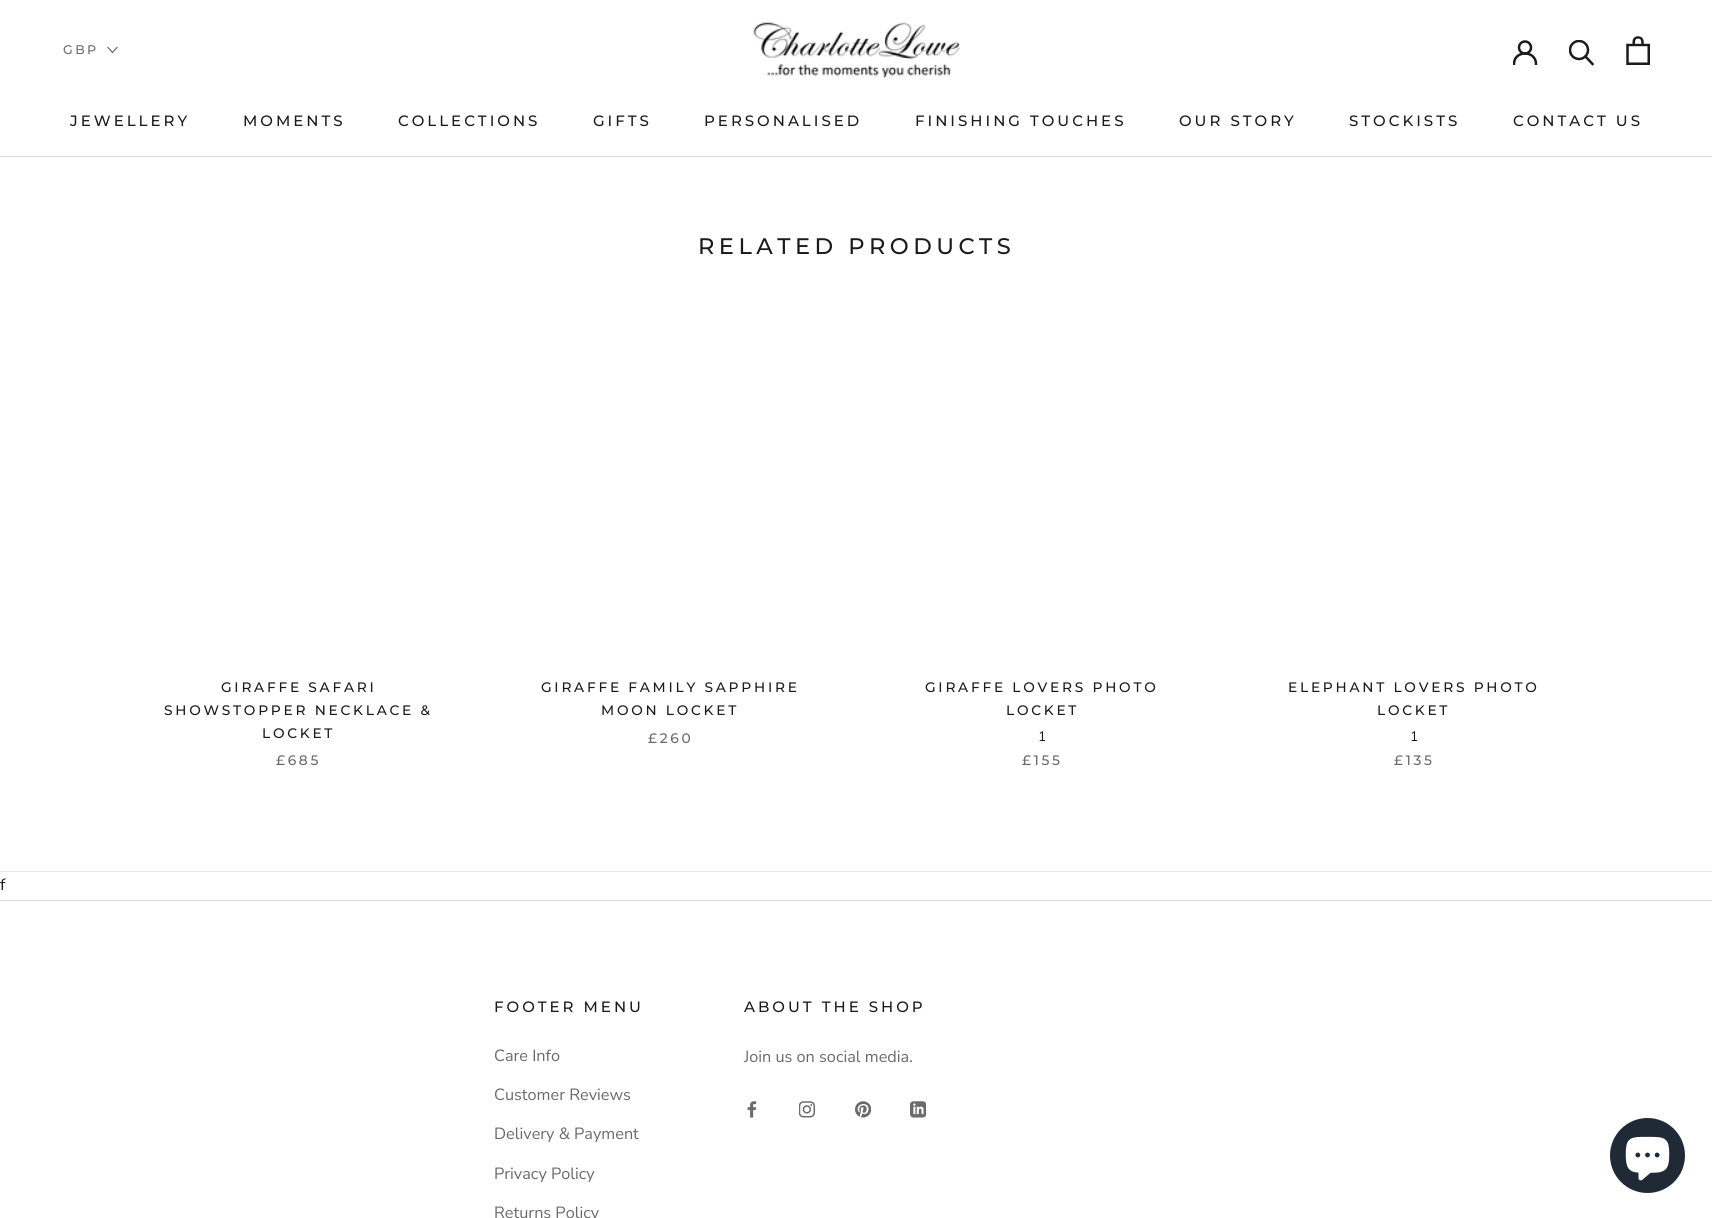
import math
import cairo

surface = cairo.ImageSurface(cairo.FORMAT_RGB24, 1712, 1218)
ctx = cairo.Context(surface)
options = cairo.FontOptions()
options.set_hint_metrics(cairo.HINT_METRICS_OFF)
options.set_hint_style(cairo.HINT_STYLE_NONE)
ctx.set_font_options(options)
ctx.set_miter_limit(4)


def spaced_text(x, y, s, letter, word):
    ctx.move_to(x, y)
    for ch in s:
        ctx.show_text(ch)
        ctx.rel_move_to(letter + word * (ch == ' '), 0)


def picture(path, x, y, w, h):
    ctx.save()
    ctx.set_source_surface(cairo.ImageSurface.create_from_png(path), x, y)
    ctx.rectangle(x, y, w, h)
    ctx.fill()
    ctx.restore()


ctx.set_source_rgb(1, 1, 1)
ctx.paint()
ctx.set_source_rgb(0.867, 0.867, 0.867)
ctx.rectangle(0, 156, 1712, 1)
ctx.fill()
picture("img1.png", 753, 22, 207, 56)
ctx.save()
ctx.rectangle(1513, 40, 25, 25)
ctx.clip()
ctx.new_path()
ctx.move_to(1514, 64)
ctx.curve_to(1514, 50, 1536, 50, 1536, 64)
ctx.set_source_rgb(0.11, 0.106, 0.106)
ctx.set_line_width(2.5)
ctx.set_line_cap(cairo.LINE_CAP_SQUARE)
ctx.stroke()
ctx.restore()
ctx.arc(1525, 47.5, 6, 0, 2 * math.pi)
ctx.set_source_rgb(0.11, 0.106, 0.106)
ctx.set_line_width(2.5)
ctx.stroke()
ctx.new_path()
ctx.move_to(1592.5, 64)
ctx.line_to(1585.5, 56.5)
ctx.set_line_cap(cairo.LINE_CAP_SQUARE)
ctx.stroke()
ctx.save()
ctx.rectangle(1569, 40, 26, 26)
ctx.clip()
ctx.arc(1579, 50, 9, 0, 2 * math.pi)
ctx.set_line_cap(cairo.LINE_CAP_BUTT)
ctx.stroke()
ctx.restore()
picture("img2.png", 1626, 36, 24, 29)
ctx.select_font_face("Montserrat Medium")
ctx.set_font_size(12.5)
ctx.set_source_rgb(0.416, 0.416, 0.416)
spaced_text(63, 54, "GBP", 2.5, 0)
ctx.new_path()
ctx.move_to(117, 47.5)
ctx.line_to(112.5, 52.5)
ctx.line_to(108, 47.5)
ctx.set_line_width(1.2)
ctx.stroke()
ctx.set_font_size(15)
ctx.set_source_rgb(0.11, 0.106, 0.106)
spaced_text(70, 126, "JEWELLERY", 3, 0)
spaced_text(243, 126, "MOMENTS", 3, 0)
spaced_text(398, 126, "COLLECTIONS", 3, 0)
spaced_text(593, 126, "GIFTS", 3, 0)
spaced_text(704, 126, "PERSONALISED", 3, 0)
spaced_text(915, 126, "FINISHING TOUCHES", 3, 0)
spaced_text(1179, 126, "OUR STORY", 3, 0)
spaced_text(1349, 126, "STOCKISTS", 3, 0)
spaced_text(1513, 126, "CONTACT US", 3, 0)
ctx.set_font_size(22.5)
spaced_text(698, 254, "RELATED PRODUCTS", 4.5, 0)
ctx.set_font_size(13.75)
spaced_text(221, 692, "GIRAFFE SAFARI", 2.75, 0)
spaced_text(164, 715, "SHOWSTOPPER NECKLACE &", 2.75, 0)
spaced_text(262, 738, "LOCKET", 2.75, 0)
ctx.set_source_rgb(0.416, 0.416, 0.416)
spaced_text(276, 765, "£685", 2.75, 0)
ctx.set_source_rgb(0.11, 0.106, 0.106)
spaced_text(541, 692, "GIRAFFE FAMILY SAPPHIRE", 2.75, 0)
spaced_text(601, 715, "MOON LOCKET", 2.75, 0)
ctx.set_source_rgb(0.416, 0.416, 0.416)
spaced_text(648, 743, "£260", 2.75, 0)
ctx.set_source_rgb(0.11, 0.106, 0.106)
spaced_text(925, 692, "GIRAFFE LOVERS PHOTO", 2.75, 0)
spaced_text(1006, 715, "LOCKET", 2.75, 0)
ctx.select_font_face("Nunito Sans")
ctx.move_to(1038, 741)
ctx.show_text("1")
ctx.select_font_face("Montserrat Medium")
ctx.set_source_rgb(0.416, 0.416, 0.416)
spaced_text(1022, 765, "£155", 2.75, 0)
ctx.set_source_rgb(0.11, 0.106, 0.106)
spaced_text(1288, 692, "ELEPHANT LOVERS PHOTO", 2.75, 0)
spaced_text(1377, 715, "LOCKET", 2.75, 0)
ctx.select_font_face("Nunito Sans")
ctx.move_to(1410, 741)
ctx.show_text("1")
ctx.select_font_face("Montserrat Medium")
ctx.set_source_rgb(0.416, 0.416, 0.416)
spaced_text(1394, 765, "£135", 2.75, 0)
ctx.set_source_rgb(0.914, 0.914, 0.914)
ctx.rectangle(0, 871, 1712, 1)
ctx.fill()
ctx.select_font_face("Nunito Sans")
ctx.set_font_size(16.25)
ctx.set_source_rgb(0.11, 0.106, 0.106)
ctx.move_to(0, 890)
ctx.show_text("f")
ctx.set_source_rgb(0.867, 0.867, 0.867)
ctx.rectangle(0, 900, 1712, 1)
ctx.fill()
ctx.select_font_face("Montserrat Medium")
ctx.set_font_size(15)
ctx.set_source_rgb(0.11, 0.106, 0.106)
spaced_text(494, 1012, "FOOTER MENU", 3, 0)
ctx.select_font_face("Nunito Sans")
ctx.set_font_size(16.25)
ctx.set_source_rgb(0.416, 0.416, 0.416)
ctx.move_to(494, 1061)
ctx.show_text("Care Info")
ctx.move_to(494, 1100)
ctx.show_text("Customer Reviews")
ctx.move_to(494, 1139)
ctx.show_text("Delivery & Payment")
ctx.move_to(494, 1179)
ctx.show_text("Privacy Policy")
ctx.move_to(494, 1218)
ctx.show_text("Returns Policy")
ctx.select_font_face("Montserrat Medium")
ctx.set_font_size(15)
ctx.set_source_rgb(0.11, 0.106, 0.106)
spaced_text(744, 1012, "ABOUT THE SHOP", 3, 0)
ctx.select_font_face("Nunito Sans")
ctx.set_font_size(16.25)
ctx.set_source_rgb(0.416, 0.416, 0.416)
ctx.move_to(744, 1062)
ctx.show_text("Join us on social media.")
picture("img3.png", 747, 1101, 10, 17)
picture("img4.png", 799, 1101, 16, 17)
picture("img5.png", 855, 1101, 16, 17)
picture("img6.png", 910, 1101, 16, 17)
ctx.set_source_rgb(0.125, 0.165, 0.212)
ctx.arc(1647.5, 1155.5, 37.5, 0, 2 * math.pi)
ctx.fill()
picture("img7.png", 1625, 1136, 45, 45)
surface.write_to_png("page.png")
